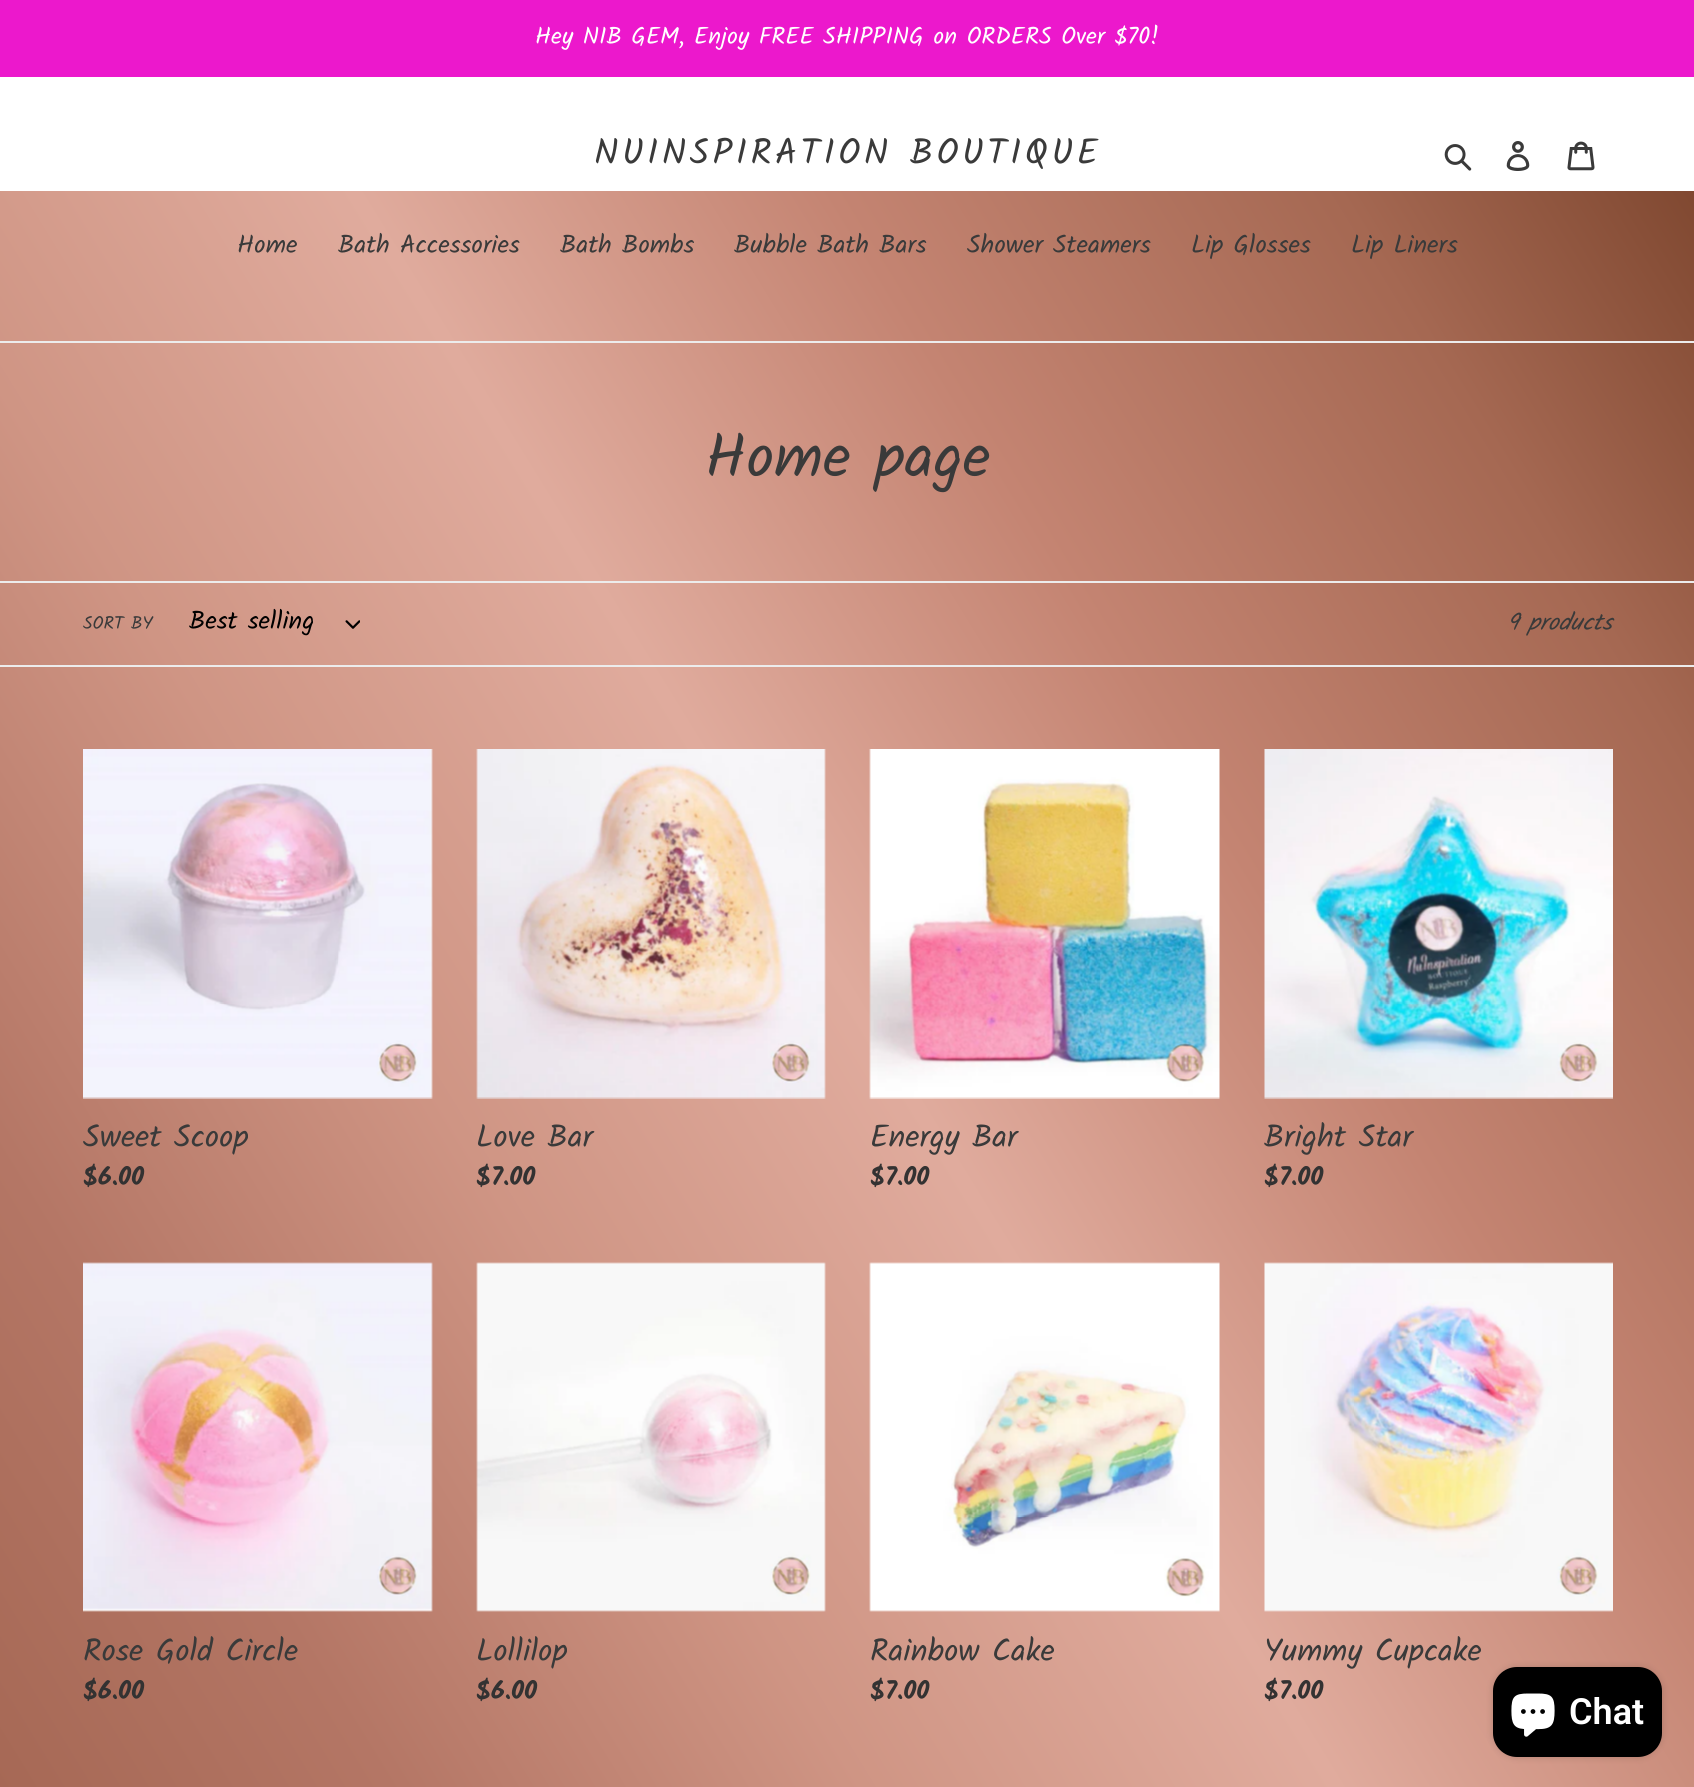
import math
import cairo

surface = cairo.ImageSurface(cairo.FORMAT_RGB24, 1694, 1787)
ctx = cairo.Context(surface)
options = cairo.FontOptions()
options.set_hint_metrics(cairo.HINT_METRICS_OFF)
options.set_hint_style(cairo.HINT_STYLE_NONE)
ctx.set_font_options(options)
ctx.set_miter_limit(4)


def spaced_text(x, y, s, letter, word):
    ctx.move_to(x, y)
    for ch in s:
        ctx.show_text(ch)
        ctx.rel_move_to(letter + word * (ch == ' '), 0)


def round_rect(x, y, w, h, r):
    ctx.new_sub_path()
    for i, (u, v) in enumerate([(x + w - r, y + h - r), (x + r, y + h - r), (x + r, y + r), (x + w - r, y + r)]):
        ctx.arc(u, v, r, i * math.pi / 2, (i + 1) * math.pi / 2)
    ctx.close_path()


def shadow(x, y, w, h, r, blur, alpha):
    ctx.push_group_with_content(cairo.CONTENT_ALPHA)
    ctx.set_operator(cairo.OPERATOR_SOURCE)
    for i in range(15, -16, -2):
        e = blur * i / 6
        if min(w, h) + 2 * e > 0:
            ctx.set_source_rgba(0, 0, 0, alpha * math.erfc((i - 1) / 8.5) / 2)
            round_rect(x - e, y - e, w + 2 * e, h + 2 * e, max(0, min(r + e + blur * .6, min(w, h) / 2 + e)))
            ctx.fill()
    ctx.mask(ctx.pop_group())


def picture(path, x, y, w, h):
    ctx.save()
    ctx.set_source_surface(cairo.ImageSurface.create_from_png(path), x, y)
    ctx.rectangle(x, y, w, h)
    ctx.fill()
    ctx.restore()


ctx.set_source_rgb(1, 1, 1)
ctx.paint()
gradient = cairo.LinearGradient(-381, 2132, 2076, 619)
gradient.add_color_stop_rgba(0, 0.584, 0.376, 0.318, 1)
gradient.add_color_stop_rgba(0.14, 0.635, 0.392, 0.314, 1)
gradient.add_color_stop_rgba(0.29, 0.706, 0.463, 0.396, 1)
gradient.add_color_stop_rgba(0.43, 0.812, 0.584, 0.518, 1)
gradient.add_color_stop_rgba(0.57, 0.878, 0.671, 0.616, 1)
gradient.add_color_stop_rgba(0.71, 0.769, 0.518, 0.447, 1)
gradient.add_color_stop_rgba(0.86, 0.647, 0.408, 0.322, 1)
gradient.add_color_stop_rgba(1, 0.455, 0.243, 0.149, 1)
ctx.set_source(gradient)
ctx.rectangle(0, 191, 1694, 1596)
ctx.fill()
ctx.set_source_rgb(0.925, 0.094, 0.8)
ctx.rectangle(0, 0, 1694, 77)
ctx.fill()
ctx.select_font_face("Kalam")
ctx.set_font_size(24)
ctx.set_source_rgb(1, 1, 1)
ctx.move_to(535, 44)
ctx.show_text("Hey NIB GEM, Enjoy FREE SHIPPING on ORDERS Over $70!")
ctx.set_font_size(36)
ctx.set_source_rgb(0.227, 0.227, 0.227)
spaced_text(594, 164, "NUINSPIRATION BOUTIQUE", 3.6, 0)
picture("img1.png", 1444, 144, 28, 27)
picture("img2.png", 1506, 141, 24, 30)
picture("img3.png", 1567, 141, 28, 30)
ctx.set_source_rgb(0.922, 0.922, 0.922)
ctx.rectangle(0, 341, 1694, 2)
ctx.fill()
ctx.set_font_size(25.5)
ctx.set_source_rgb(0.227, 0.227, 0.227)
ctx.move_to(237, 253)
ctx.show_text("Home")
ctx.move_to(338, 253)
ctx.show_text("Bath Accessories")
ctx.move_to(560, 253)
ctx.show_text("Bath Bombs")
ctx.move_to(734, 253)
ctx.show_text("Bubble Bath Bars")
ctx.move_to(967, 253)
ctx.show_text("Shower Steamers")
ctx.move_to(1191, 253)
ctx.show_text("Lip Glosses")
ctx.move_to(1351, 253)
ctx.show_text("Lip Liners")
ctx.set_font_size(61.5)
ctx.move_to(705, 477)
ctx.show_text("Home page")
ctx.set_source_rgb(0.922, 0.922, 0.922)
ctx.rectangle(0, 581, 1694, 2)
ctx.fill()
ctx.rectangle(0, 665, 1694, 2)
ctx.fill()
ctx.set_font_size(18)
ctx.set_source_rgb(0.227, 0.227, 0.227)
ctx.move_to(83, 629)
ctx.show_text("SORT BY")
ctx.set_font_size(25.5)
ctx.set_source_rgb(0, 0, 0)
ctx.move_to(189, 629)
ctx.show_text("Best selling")
picture("img4.png", 345, 620, 15, 9)
ctx.select_font_face("Kalam", cairo.FONT_SLANT_ITALIC)
ctx.set_font_size(24)
ctx.set_source_rgb(0.227, 0.227, 0.227)
ctx.move_to(1507, 630)
ctx.show_text("9 products")
picture("img5.png", 83, 749, 350, 350)
ctx.select_font_face("Kalam")
ctx.set_font_size(31.5)
ctx.move_to(83, 1147)
ctx.show_text("Sweet Scoop")
ctx.select_font_face("Kalam", cairo.FONT_SLANT_NORMAL, cairo.FONT_WEIGHT_BOLD)
ctx.set_font_size(25.5)
ctx.set_source_rgb(0.2, 0.196, 0.196)
ctx.move_to(83, 1185)
ctx.show_text("$6.00")
picture("img6.png", 476, 749, 350, 350)
ctx.select_font_face("Kalam")
ctx.set_font_size(31.5)
ctx.set_source_rgb(0.227, 0.227, 0.227)
ctx.move_to(476, 1147)
ctx.show_text("Love Bar")
ctx.select_font_face("Kalam", cairo.FONT_SLANT_NORMAL, cairo.FONT_WEIGHT_BOLD)
ctx.set_font_size(25.5)
ctx.set_source_rgb(0.2, 0.196, 0.196)
ctx.move_to(476, 1185)
ctx.show_text("$7.00")
picture("img7.png", 869, 749, 351, 350)
ctx.select_font_face("Kalam")
ctx.set_font_size(31.5)
ctx.set_source_rgb(0.227, 0.227, 0.227)
ctx.move_to(870, 1147)
ctx.show_text("Energy Bar")
ctx.select_font_face("Kalam", cairo.FONT_SLANT_NORMAL, cairo.FONT_WEIGHT_BOLD)
ctx.set_font_size(25.5)
ctx.set_source_rgb(0.2, 0.196, 0.196)
ctx.move_to(870, 1185)
ctx.show_text("$7.00")
picture("img8.png", 1264, 749, 349, 350)
ctx.select_font_face("Kalam")
ctx.set_font_size(31.5)
ctx.set_source_rgb(0.227, 0.227, 0.227)
ctx.move_to(1264, 1147)
ctx.show_text("Bright Star")
ctx.select_font_face("Kalam", cairo.FONT_SLANT_NORMAL, cairo.FONT_WEIGHT_BOLD)
ctx.set_font_size(25.5)
ctx.set_source_rgb(0.2, 0.196, 0.196)
ctx.move_to(1264, 1185)
ctx.show_text("$7.00")
picture("img9.png", 83, 1262, 350, 350)
ctx.select_font_face("Kalam")
ctx.set_font_size(31.5)
ctx.set_source_rgb(0.227, 0.227, 0.227)
ctx.move_to(83, 1661)
ctx.show_text("Rose Gold Circle")
ctx.select_font_face("Kalam", cairo.FONT_SLANT_NORMAL, cairo.FONT_WEIGHT_BOLD)
ctx.set_font_size(25.5)
ctx.set_source_rgb(0.2, 0.196, 0.196)
ctx.move_to(83, 1699)
ctx.show_text("$6.00")
picture("img10.png", 476, 1262, 350, 350)
ctx.select_font_face("Kalam")
ctx.set_font_size(31.5)
ctx.set_source_rgb(0.227, 0.227, 0.227)
ctx.move_to(476, 1661)
ctx.show_text("Lollilop")
ctx.select_font_face("Kalam", cairo.FONT_SLANT_NORMAL, cairo.FONT_WEIGHT_BOLD)
ctx.set_font_size(25.5)
ctx.set_source_rgb(0.2, 0.196, 0.196)
ctx.move_to(476, 1699)
ctx.show_text("$6.00")
picture("img11.png", 869, 1262, 351, 350)
ctx.select_font_face("Kalam")
ctx.set_font_size(31.5)
ctx.set_source_rgb(0.227, 0.227, 0.227)
ctx.move_to(870, 1661)
ctx.show_text("Rainbow Cake")
ctx.select_font_face("Kalam", cairo.FONT_SLANT_NORMAL, cairo.FONT_WEIGHT_BOLD)
ctx.set_font_size(25.5)
ctx.set_source_rgb(0.2, 0.196, 0.196)
ctx.move_to(870, 1699)
ctx.show_text("$7.00")
picture("img12.png", 1264, 1262, 349, 350)
ctx.select_font_face("Kalam")
ctx.set_font_size(31.5)
ctx.set_source_rgb(0.227, 0.227, 0.227)
ctx.move_to(1264, 1661)
ctx.show_text("Yummy Cupcake")
ctx.select_font_face("Kalam", cairo.FONT_SLANT_NORMAL, cairo.FONT_WEIGHT_BOLD)
ctx.set_font_size(25.5)
ctx.set_source_rgb(0.2, 0.196, 0.196)
ctx.move_to(1264, 1699)
ctx.show_text("$7.00")
ctx.set_source_rgb(0, 0, 0)
shadow(1493, 1667, 169, 90, 24, 4, 0.15)
ctx.set_source_rgb(0, 0, 0)
round_rect(1493, 1667, 169, 90, 24)
ctx.fill()
picture("img13.png", 1511, 1693, 44, 44)
ctx.select_font_face("Roboto SemiBold")
ctx.set_font_size(36)
ctx.set_source_rgb(1, 1, 1)
ctx.move_to(1569, 1724)
ctx.show_text("Chat")
surface.write_to_png("page.png")
